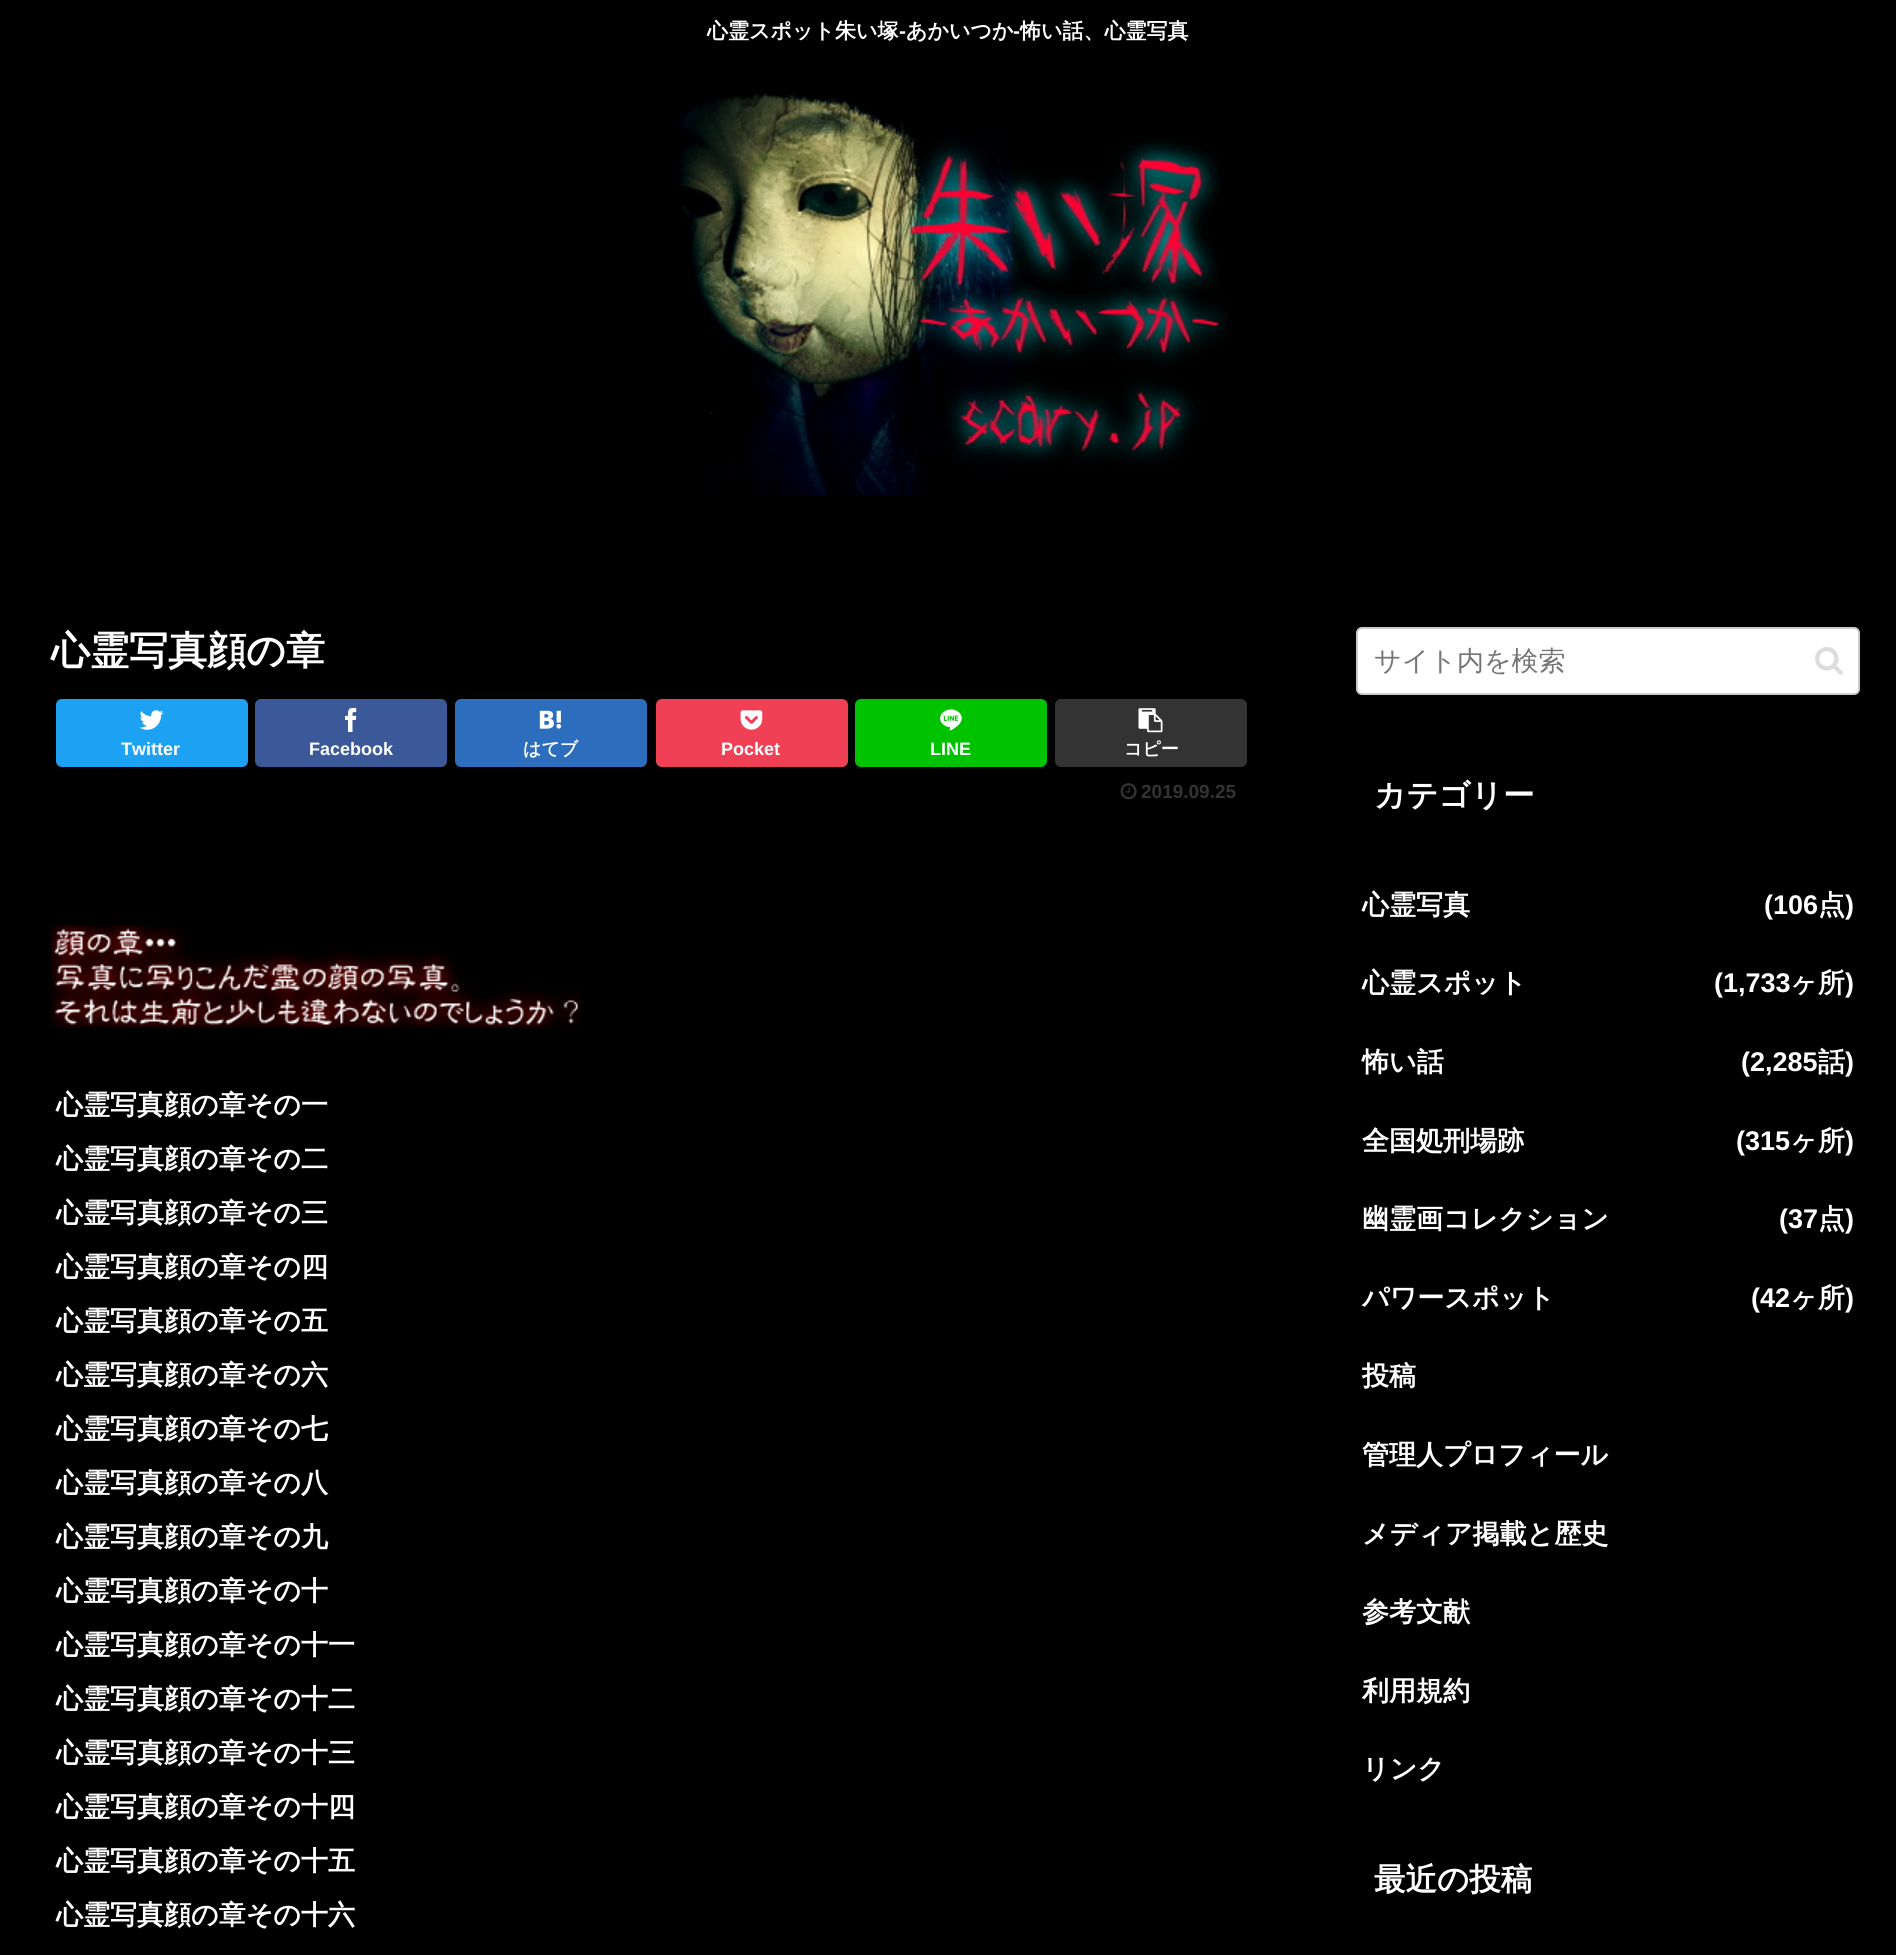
import math
import cairo

surface = cairo.ImageSurface(cairo.FORMAT_RGB24, 1896, 1955)
ctx = cairo.Context(surface)
options = cairo.FontOptions()
options.set_hint_metrics(cairo.HINT_METRICS_OFF)
options.set_hint_style(cairo.HINT_STYLE_NONE)
ctx.set_font_options(options)
ctx.set_miter_limit(4)


def round_rect(x, y, w, h, r):
    ctx.new_sub_path()
    for i, (u, v) in enumerate([(x + w - r, y + h - r), (x + r, y + h - r), (x + r, y + r), (x + w - r, y + r)]):
        ctx.arc(u, v, r, i * math.pi / 2, (i + 1) * math.pi / 2)
    ctx.close_path()


def picture(path, x, y, w, h):
    ctx.save()
    ctx.set_source_surface(cairo.ImageSurface.create_from_png(path), x, y)
    ctx.rectangle(x, y, w, h)
    ctx.fill()
    ctx.restore()


ctx.set_source_rgb(0, 0, 0)
ctx.paint()
ctx.select_font_face("WenQuanYi Zen Hei", cairo.FONT_SLANT_NORMAL, cairo.FONT_WEIGHT_BOLD)
ctx.set_font_size(21)
ctx.set_source_rgb(1, 1, 1)
ctx.move_to(707, 38)
ctx.show_text("心霊スポット朱い塚")
ctx.select_font_face("Liberation Sans", cairo.FONT_SLANT_NORMAL, cairo.FONT_WEIGHT_BOLD)
ctx.move_to(899, 38)
ctx.show_text("-")
ctx.select_font_face("WenQuanYi Zen Hei", cairo.FONT_SLANT_NORMAL, cairo.FONT_WEIGHT_BOLD)
ctx.move_to(906, 38)
ctx.show_text("あかいつか")
ctx.select_font_face("Liberation Sans", cairo.FONT_SLANT_NORMAL, cairo.FONT_WEIGHT_BOLD)
ctx.move_to(1013, 38)
ctx.show_text("-")
ctx.select_font_face("WenQuanYi Zen Hei", cairo.FONT_SLANT_NORMAL, cairo.FONT_WEIGHT_BOLD)
ctx.move_to(1020, 38)
ctx.show_text("怖い話、心霊写真")
picture("img1.png", 676, 93, 553, 402)
ctx.set_font_size(39)
ctx.move_to(51, 664)
ctx.show_text("心霊写真顔の章")
ctx.set_source_rgb(0.114, 0.631, 0.949)
round_rect(56, 699, 192, 68, 6)
ctx.fill()
picture("img2.png", 139, 710, 25, 20)
ctx.select_font_face("Liberation Sans", cairo.FONT_SLANT_NORMAL, cairo.FONT_WEIGHT_BOLD)
ctx.set_font_size(18)
ctx.set_source_rgb(1, 1, 1)
ctx.move_to(121, 755)
ctx.show_text("Twitter")
ctx.set_source_rgb(0.231, 0.349, 0.596)
round_rect(255, 699, 192, 68, 6)
ctx.fill()
picture("img3.png", 345, 708, 12, 24)
ctx.set_source_rgb(1, 1, 1)
ctx.move_to(309, 755)
ctx.show_text("Facebook")
ctx.set_source_rgb(0.173, 0.431, 0.741)
round_rect(455, 699, 192, 68, 6)
ctx.fill()
picture("img4.png", 539, 710, 23, 19)
ctx.select_font_face("WenQuanYi Zen Hei", cairo.FONT_SLANT_NORMAL, cairo.FONT_WEIGHT_BOLD)
ctx.set_source_rgb(1, 1, 1)
ctx.move_to(523, 755)
ctx.show_text("はてブ")
ctx.set_source_rgb(0.937, 0.251, 0.337)
round_rect(656, 699, 192, 68, 6)
ctx.fill()
picture("img5.png", 740, 710, 23, 20)
ctx.select_font_face("Liberation Sans", cairo.FONT_SLANT_NORMAL, cairo.FONT_WEIGHT_BOLD)
ctx.set_source_rgb(1, 1, 1)
ctx.move_to(721, 755)
ctx.show_text("Pocket")
ctx.set_source_rgb(0, 0.765, 0)
round_rect(855, 699, 192, 68, 6)
ctx.fill()
picture("img6.png", 940, 709, 22, 22)
ctx.set_source_rgb(1, 1, 1)
ctx.move_to(930, 755)
ctx.show_text("LINE")
ctx.set_source_rgb(0.2, 0.2, 0.2)
round_rect(1055, 699, 192, 68, 6)
ctx.fill()
picture("img7.png", 1138, 708, 25, 25)
ctx.select_font_face("WenQuanYi Zen Hei", cairo.FONT_SLANT_NORMAL, cairo.FONT_WEIGHT_BOLD)
ctx.set_source_rgb(1, 1, 1)
ctx.move_to(1124, 755)
ctx.show_text("コピー")
picture("img8.png", 1120, 783, 17, 17)
ctx.select_font_face("Liberation Sans", cairo.FONT_SLANT_NORMAL, cairo.FONT_WEIGHT_BOLD)
ctx.set_font_size(19)
ctx.set_source_rgb(0.2, 0.2, 0.2)
ctx.move_to(1141, 798)
ctx.show_text("2019.09.25")
picture("img9.png", 51, 925, 530, 103)
ctx.select_font_face("WenQuanYi Zen Hei", cairo.FONT_SLANT_NORMAL, cairo.FONT_WEIGHT_BOLD)
ctx.set_font_size(27)
ctx.set_source_rgb(1, 1, 1)
ctx.move_to(56, 1114)
ctx.show_text("心霊写真顔の章その一")
ctx.move_to(56, 1168)
ctx.show_text("心霊写真顔の章その二")
ctx.move_to(56, 1222)
ctx.show_text("心霊写真顔の章その三")
ctx.move_to(56, 1276)
ctx.show_text("心霊写真顔の章その四")
ctx.move_to(56, 1330)
ctx.show_text("心霊写真顔の章その五")
ctx.move_to(56, 1384)
ctx.show_text("心霊写真顔の章その六")
ctx.move_to(56, 1438)
ctx.show_text("心霊写真顔の章その七")
ctx.move_to(56, 1492)
ctx.show_text("心霊写真顔の章その八")
ctx.move_to(56, 1546)
ctx.show_text("心霊写真顔の章その九")
ctx.move_to(56, 1600)
ctx.show_text("心霊写真顔の章その十")
ctx.move_to(56, 1654)
ctx.show_text("心霊写真顔の章その十一")
ctx.move_to(56, 1708)
ctx.show_text("心霊写真顔の章その十二")
ctx.move_to(56, 1762)
ctx.show_text("心霊写真顔の章その十三")
ctx.move_to(56, 1816)
ctx.show_text("心霊写真顔の章その十四")
ctx.move_to(56, 1870)
ctx.show_text("心霊写真顔の章その十五")
ctx.move_to(56, 1924)
ctx.show_text("心霊写真顔の章その十六")
round_rect(1357, 628, 502, 66, 5)
ctx.fill_preserve()
ctx.set_source_rgb(0.8, 0.8, 0.8)
ctx.stroke()
ctx.select_font_face("WenQuanYi Zen Hei Medium")
ctx.set_source_rgb(0.459, 0.459, 0.459)
ctx.move_to(1374, 670)
ctx.show_text("サイト内を検索")
picture("img10.png", 1815, 647, 28, 28)
ctx.select_font_face("WenQuanYi Zen Hei", cairo.FONT_SLANT_NORMAL, cairo.FONT_WEIGHT_BOLD)
ctx.set_font_size(31.5)
ctx.set_source_rgb(1, 1, 1)
ctx.move_to(1374, 806)
ctx.show_text("カテゴリー")
ctx.set_font_size(27)
ctx.move_to(1362, 914)
ctx.show_text("心霊写真")
ctx.select_font_face("Liberation Sans", cairo.FONT_SLANT_NORMAL, cairo.FONT_WEIGHT_BOLD)
ctx.move_to(1764, 914)
ctx.show_text("(106")
ctx.select_font_face("WenQuanYi Zen Hei", cairo.FONT_SLANT_NORMAL, cairo.FONT_WEIGHT_BOLD)
ctx.move_to(1818, 914)
ctx.show_text("点")
ctx.select_font_face("Liberation Sans", cairo.FONT_SLANT_NORMAL, cairo.FONT_WEIGHT_BOLD)
ctx.move_to(1845, 914)
ctx.show_text(")")
ctx.select_font_face("WenQuanYi Zen Hei", cairo.FONT_SLANT_NORMAL, cairo.FONT_WEIGHT_BOLD)
ctx.move_to(1362, 992)
ctx.show_text("心霊スポット")
ctx.select_font_face("Liberation Sans", cairo.FONT_SLANT_NORMAL, cairo.FONT_WEIGHT_BOLD)
ctx.move_to(1714, 992)
ctx.show_text("(1,733")
ctx.select_font_face("WenQuanYi Zen Hei", cairo.FONT_SLANT_NORMAL, cairo.FONT_WEIGHT_BOLD)
ctx.move_to(1790, 992)
ctx.show_text("ヶ所")
ctx.select_font_face("Liberation Sans", cairo.FONT_SLANT_NORMAL, cairo.FONT_WEIGHT_BOLD)
ctx.move_to(1845, 992)
ctx.show_text(")")
ctx.select_font_face("WenQuanYi Zen Hei", cairo.FONT_SLANT_NORMAL, cairo.FONT_WEIGHT_BOLD)
ctx.move_to(1362, 1071)
ctx.show_text("怖い話")
ctx.select_font_face("Liberation Sans", cairo.FONT_SLANT_NORMAL, cairo.FONT_WEIGHT_BOLD)
ctx.move_to(1741, 1071)
ctx.show_text("(2,285")
ctx.select_font_face("WenQuanYi Zen Hei", cairo.FONT_SLANT_NORMAL, cairo.FONT_WEIGHT_BOLD)
ctx.move_to(1818, 1071)
ctx.show_text("話")
ctx.select_font_face("Liberation Sans", cairo.FONT_SLANT_NORMAL, cairo.FONT_WEIGHT_BOLD)
ctx.move_to(1845, 1071)
ctx.show_text(")")
ctx.select_font_face("WenQuanYi Zen Hei", cairo.FONT_SLANT_NORMAL, cairo.FONT_WEIGHT_BOLD)
ctx.move_to(1362, 1150)
ctx.show_text("全国処刑場跡")
ctx.select_font_face("Liberation Sans", cairo.FONT_SLANT_NORMAL, cairo.FONT_WEIGHT_BOLD)
ctx.move_to(1736, 1150)
ctx.show_text("(315")
ctx.select_font_face("WenQuanYi Zen Hei", cairo.FONT_SLANT_NORMAL, cairo.FONT_WEIGHT_BOLD)
ctx.move_to(1790, 1150)
ctx.show_text("ヶ所")
ctx.select_font_face("Liberation Sans", cairo.FONT_SLANT_NORMAL, cairo.FONT_WEIGHT_BOLD)
ctx.move_to(1845, 1150)
ctx.show_text(")")
ctx.select_font_face("WenQuanYi Zen Hei", cairo.FONT_SLANT_NORMAL, cairo.FONT_WEIGHT_BOLD)
ctx.move_to(1362, 1228)
ctx.show_text("幽霊画コレクション")
ctx.select_font_face("Liberation Sans", cairo.FONT_SLANT_NORMAL, cairo.FONT_WEIGHT_BOLD)
ctx.move_to(1779, 1228)
ctx.show_text("(37")
ctx.select_font_face("WenQuanYi Zen Hei", cairo.FONT_SLANT_NORMAL, cairo.FONT_WEIGHT_BOLD)
ctx.move_to(1818, 1228)
ctx.show_text("点")
ctx.select_font_face("Liberation Sans", cairo.FONT_SLANT_NORMAL, cairo.FONT_WEIGHT_BOLD)
ctx.move_to(1845, 1228)
ctx.show_text(")")
ctx.select_font_face("WenQuanYi Zen Hei", cairo.FONT_SLANT_NORMAL, cairo.FONT_WEIGHT_BOLD)
ctx.move_to(1362, 1307)
ctx.show_text("パワースポット")
ctx.select_font_face("Liberation Sans", cairo.FONT_SLANT_NORMAL, cairo.FONT_WEIGHT_BOLD)
ctx.move_to(1751, 1307)
ctx.show_text("(42")
ctx.select_font_face("WenQuanYi Zen Hei", cairo.FONT_SLANT_NORMAL, cairo.FONT_WEIGHT_BOLD)
ctx.move_to(1790, 1307)
ctx.show_text("ヶ所")
ctx.select_font_face("Liberation Sans", cairo.FONT_SLANT_NORMAL, cairo.FONT_WEIGHT_BOLD)
ctx.move_to(1845, 1307)
ctx.show_text(")")
ctx.select_font_face("WenQuanYi Zen Hei", cairo.FONT_SLANT_NORMAL, cairo.FONT_WEIGHT_BOLD)
ctx.move_to(1362, 1385)
ctx.show_text("投稿")
ctx.move_to(1362, 1464)
ctx.show_text("管理人プロフィール")
ctx.move_to(1362, 1543)
ctx.show_text("メディア掲載と歴史")
ctx.move_to(1362, 1621)
ctx.show_text("参考文献")
ctx.move_to(1362, 1700)
ctx.show_text("利用規約")
ctx.move_to(1362, 1778)
ctx.show_text("リンク")
ctx.set_font_size(31.5)
ctx.move_to(1374, 1890)
ctx.show_text("最近の投稿")
surface.write_to_png("page.png")
